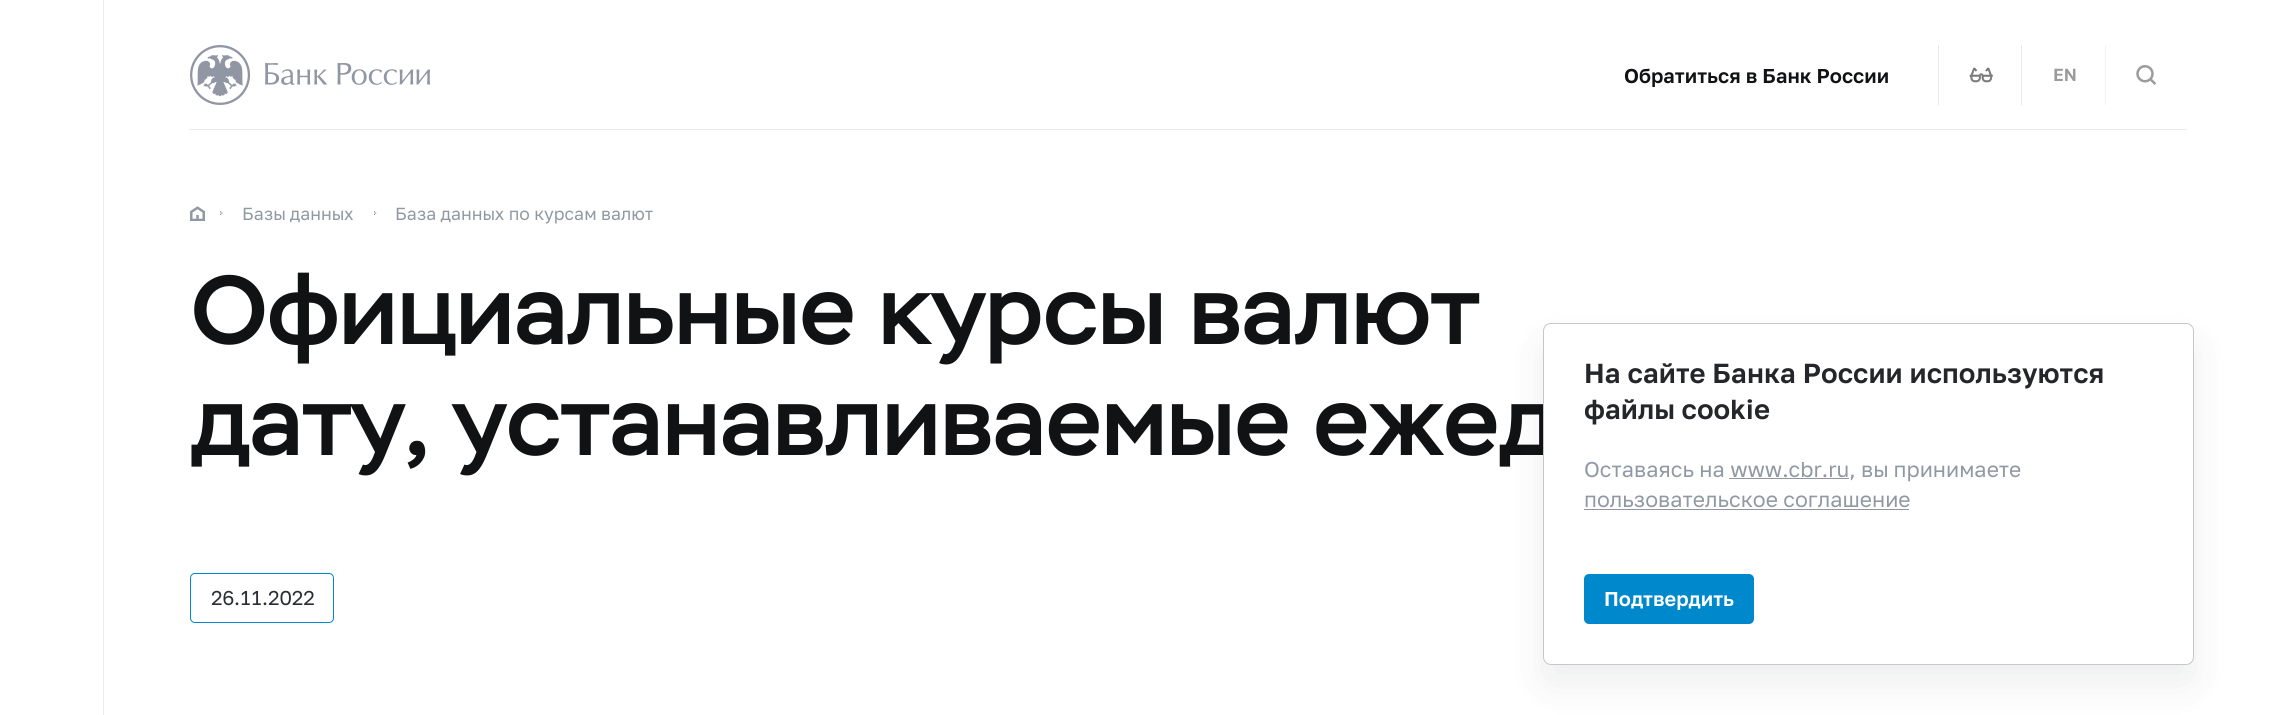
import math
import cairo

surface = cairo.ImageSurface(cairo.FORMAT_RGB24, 2280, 715)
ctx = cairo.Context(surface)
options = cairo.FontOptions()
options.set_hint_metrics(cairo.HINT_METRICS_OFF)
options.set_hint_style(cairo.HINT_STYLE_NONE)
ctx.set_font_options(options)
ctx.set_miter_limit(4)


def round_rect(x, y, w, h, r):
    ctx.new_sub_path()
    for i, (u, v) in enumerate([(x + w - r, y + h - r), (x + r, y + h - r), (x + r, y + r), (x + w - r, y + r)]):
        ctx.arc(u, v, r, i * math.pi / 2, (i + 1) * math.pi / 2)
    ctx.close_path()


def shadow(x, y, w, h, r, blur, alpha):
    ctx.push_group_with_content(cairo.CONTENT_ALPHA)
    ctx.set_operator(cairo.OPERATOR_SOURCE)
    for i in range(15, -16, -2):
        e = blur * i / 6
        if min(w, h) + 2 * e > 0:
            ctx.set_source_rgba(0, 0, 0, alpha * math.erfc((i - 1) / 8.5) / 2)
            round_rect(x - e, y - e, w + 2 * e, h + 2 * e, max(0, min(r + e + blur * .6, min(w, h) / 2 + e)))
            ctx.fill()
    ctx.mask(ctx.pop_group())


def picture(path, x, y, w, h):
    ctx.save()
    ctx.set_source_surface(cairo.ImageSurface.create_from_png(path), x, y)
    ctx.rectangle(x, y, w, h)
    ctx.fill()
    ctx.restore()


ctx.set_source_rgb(1, 1, 1)
ctx.paint()
ctx.set_source_rgb(0.91, 0.914, 0.922)
ctx.rectangle(190, 129, 1996, 1)
ctx.fill()
ctx.set_source_rgb(0.929, 0.929, 0.929)
ctx.rectangle(103, 0, 1, 715)
ctx.fill()
picture("img1.png", 190, 45, 240, 60)
ctx.select_font_face("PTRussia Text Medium")
ctx.set_font_size(20)
ctx.set_source_rgb(0.067, 0.071, 0.078)
ctx.move_to(1624, 83)
ctx.show_text("Обратиться в Банк России")
ctx.set_source_rgb(0.91, 0.914, 0.922)
ctx.rectangle(1938, 45, 1, 60)
ctx.fill()
picture("img2.png", 1969, 67, 24, 16)
ctx.rectangle(2021, 45, 1, 60)
ctx.fill()
ctx.set_font_size(17.5)
ctx.set_source_rgb(0.608, 0.608, 0.612)
ctx.move_to(2053, 81)
ctx.show_text("EN")
ctx.set_source_rgb(0.945, 0.949, 0.953)
ctx.rectangle(2105, 45, 1, 60)
ctx.fill()
picture("img3.png", 2136, 65, 20, 20)
picture("img4.png", 190, 206, 15, 15)
picture("img5.png", 220, 211, 3, 4)
ctx.select_font_face("PTRussia Text")
ctx.set_source_rgb(0.565, 0.6, 0.639)
ctx.move_to(242, 220)
ctx.show_text("Базы данных")
picture("img6.png", 374, 211, 3, 4)
ctx.move_to(395, 220)
ctx.show_text("База данных по курсам валют")
ctx.select_font_face("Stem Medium")
ctx.set_font_size(97.75)
ctx.set_source_rgb(0.067, 0.071, 0.078)
ctx.move_to(191, 344)
ctx.show_text("Официальные курсы валют")
ctx.move_to(191, 455)
ctx.show_text("дату, устанавливаемые ежед")
round_rect(190.5, 573.5, 143, 49, 4.5)
ctx.set_source_rgb(0, 0.533, 0.8)
ctx.set_line_width(1)
ctx.stroke()
ctx.select_font_face("PTRussia Text")
ctx.set_font_size(20)
ctx.set_source_rgb(0.169, 0.18, 0.2)
ctx.move_to(211, 605)
ctx.show_text("26.11.2022")
ctx.set_source_rgb(0.122, 0.133, 0.161)
shadow(1543, 343, 651, 342, 8, 20, 0.08)
ctx.set_source_rgb(1, 1, 1)
round_rect(1543.5, 323.5, 650, 341, 7.5)
ctx.fill_preserve()
ctx.set_source_rgb(0.769, 0.78, 0.8)
ctx.stroke()
ctx.select_font_face("PTRussia Text Medium")
ctx.set_font_size(27.5)
ctx.set_source_rgb(0.141, 0.149, 0.161)
ctx.move_to(1584, 383)
ctx.show_text("На сайте Банка России используются")
ctx.move_to(1584, 419)
ctx.show_text("файлы cookie")
ctx.select_font_face("PTRussia Text")
ctx.set_font_size(21.4)
ctx.set_source_rgb(0.565, 0.6, 0.639)
ctx.move_to(1584, 477)
ctx.show_text("Оставаясь на www.cbr.ru, вы принимаете")
ctx.set_source_rgb(0.561, 0.588, 0.639)
ctx.rectangle(1729, 478, 120, 1)
ctx.fill()
ctx.set_source_rgb(0.565, 0.6, 0.639)
ctx.move_to(1584, 507)
ctx.show_text("пользовательское соглашение")
ctx.set_source_rgb(0.561, 0.588, 0.639)
ctx.rectangle(1584, 509, 325, 1)
ctx.fill()
ctx.set_source_rgb(0, 0.533, 0.8)
round_rect(1584, 574, 170, 50, 5)
ctx.fill()
ctx.select_font_face("PTRussia Text Medium")
ctx.set_font_size(20)
ctx.set_source_rgb(1, 1, 1)
ctx.move_to(1604, 606)
ctx.show_text("Подтвердить")
surface.write_to_png("page.png")
